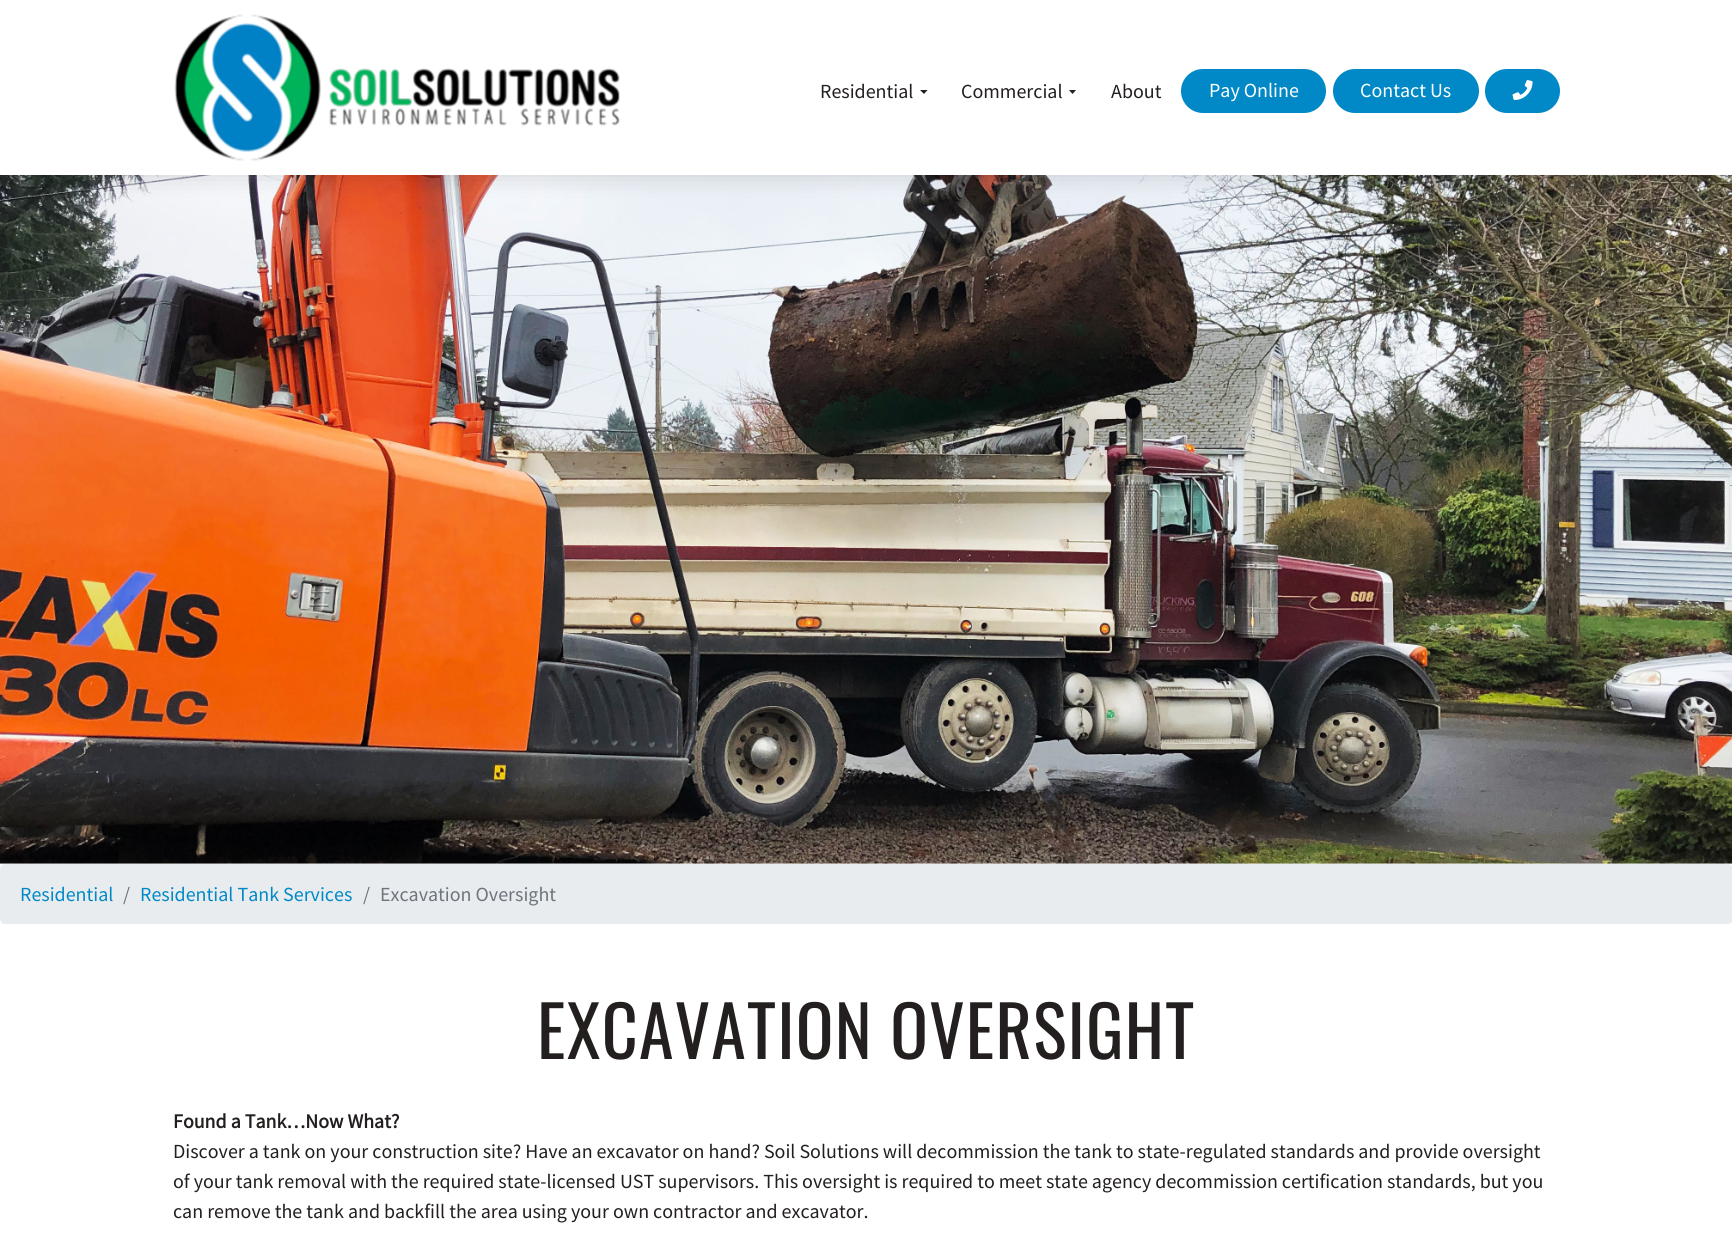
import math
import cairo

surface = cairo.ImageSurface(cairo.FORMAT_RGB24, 1732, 1252)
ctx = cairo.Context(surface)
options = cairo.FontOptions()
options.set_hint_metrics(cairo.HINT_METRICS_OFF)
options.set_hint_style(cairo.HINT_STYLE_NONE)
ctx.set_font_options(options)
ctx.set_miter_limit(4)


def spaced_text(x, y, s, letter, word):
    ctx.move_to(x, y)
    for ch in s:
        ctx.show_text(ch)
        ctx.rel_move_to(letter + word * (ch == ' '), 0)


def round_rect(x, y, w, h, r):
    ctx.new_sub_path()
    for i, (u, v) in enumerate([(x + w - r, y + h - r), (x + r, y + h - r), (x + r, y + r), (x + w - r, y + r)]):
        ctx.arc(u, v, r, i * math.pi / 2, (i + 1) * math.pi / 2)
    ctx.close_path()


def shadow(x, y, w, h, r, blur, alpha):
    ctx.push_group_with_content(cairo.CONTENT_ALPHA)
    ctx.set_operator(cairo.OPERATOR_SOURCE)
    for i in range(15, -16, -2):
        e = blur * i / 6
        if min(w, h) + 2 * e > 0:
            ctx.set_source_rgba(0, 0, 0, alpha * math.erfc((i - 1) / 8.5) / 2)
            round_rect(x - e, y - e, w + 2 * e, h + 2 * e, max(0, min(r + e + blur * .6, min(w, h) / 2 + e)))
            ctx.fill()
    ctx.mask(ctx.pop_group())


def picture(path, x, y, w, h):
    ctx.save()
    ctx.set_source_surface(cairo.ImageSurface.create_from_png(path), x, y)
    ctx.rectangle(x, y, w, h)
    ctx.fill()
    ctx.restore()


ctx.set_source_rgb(1, 1, 1)
ctx.paint()
picture("img3.png", 0, 175, 1732, 689)
ctx.set_source_rgb(0, 0, 0)
shadow(0, 0, 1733, 175, 0, 12.5, 0.15)
ctx.set_source_rgb(1, 1, 1)
ctx.rectangle(0, 0, 1732, 175)
ctx.fill()
picture("img1.png", 174, 14, 446, 147)
ctx.select_font_face("Source Sans Pro")
ctx.set_font_size(20)
ctx.set_source_rgb(0.133, 0.122, 0.118)
ctx.move_to(820, 98)
ctx.show_text("Residential")
ctx.new_path()
ctx.move_to(920, 90)
ctx.line_to(927.5, 90)
ctx.line_to(924, 94)
ctx.close_path()
ctx.fill()
ctx.move_to(961, 98)
ctx.show_text("Commercial")
ctx.new_path()
ctx.move_to(1069, 90)
ctx.line_to(1076, 90)
ctx.line_to(1072.5, 94)
ctx.close_path()
ctx.fill()
ctx.move_to(1111, 98)
ctx.show_text("About")
ctx.set_source_rgb(0, 0.537, 0.776)
round_rect(1181, 69, 145, 44, 22)
ctx.fill()
ctx.set_source_rgb(1, 1, 1)
ctx.move_to(1209, 97)
ctx.show_text("Pay Online")
ctx.set_source_rgb(0, 0.537, 0.776)
round_rect(1333, 69, 146, 44, 22)
ctx.fill()
ctx.set_source_rgb(1, 1, 1)
ctx.move_to(1360, 97)
ctx.show_text("Contact Us")
ctx.set_source_rgb(0, 0.537, 0.776)
round_rect(1485, 69, 75, 44, 22)
ctx.fill()
picture("img2.png", 1512, 80, 21, 20)
ctx.set_source_rgb(0.914, 0.925, 0.937)
round_rect(0, 864, 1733, 60, 5)
ctx.fill()
ctx.set_source_rgb(0, 0.537, 0.776)
ctx.move_to(20, 901)
ctx.show_text("Residential")
ctx.set_source_rgb(0.424, 0.459, 0.49)
ctx.move_to(123, 901)
ctx.show_text("/")
ctx.set_source_rgb(0, 0.537, 0.776)
ctx.move_to(140, 901)
ctx.show_text("Residential Tank Services")
ctx.set_source_rgb(0.424, 0.459, 0.49)
ctx.move_to(363, 901)
ctx.show_text("/")
ctx.move_to(380, 901)
ctx.show_text("Excavation Oversight")
ctx.select_font_face("Oswald")
ctx.set_font_size(70)
ctx.set_source_rgb(0.133, 0.122, 0.118)
spaced_text(537, 1059, "EXCAVATION OVERSIGHT", 1.25, 0)
ctx.select_font_face("Source Sans Pro", cairo.FONT_SLANT_NORMAL, cairo.FONT_WEIGHT_BOLD)
ctx.set_font_size(20)
ctx.move_to(173, 1128)
ctx.show_text("Found a Tank…Now What?")
ctx.select_font_face("Source Sans Pro")
ctx.move_to(173, 1158)
ctx.show_text("Discover a tank on your construction site? Have an excavator on hand? Soil Solutions will decommission the tank to state-regulated standards and provide oversight")
ctx.move_to(173, 1188)
ctx.show_text("of your tank removal with the required state-licensed UST supervisors. This oversight is required to meet state agency decommission certification standards, but you")
ctx.move_to(173, 1218)
ctx.show_text("can remove the tank and backfill the area using your own contractor and excavator.")
surface.write_to_png("page.png")
